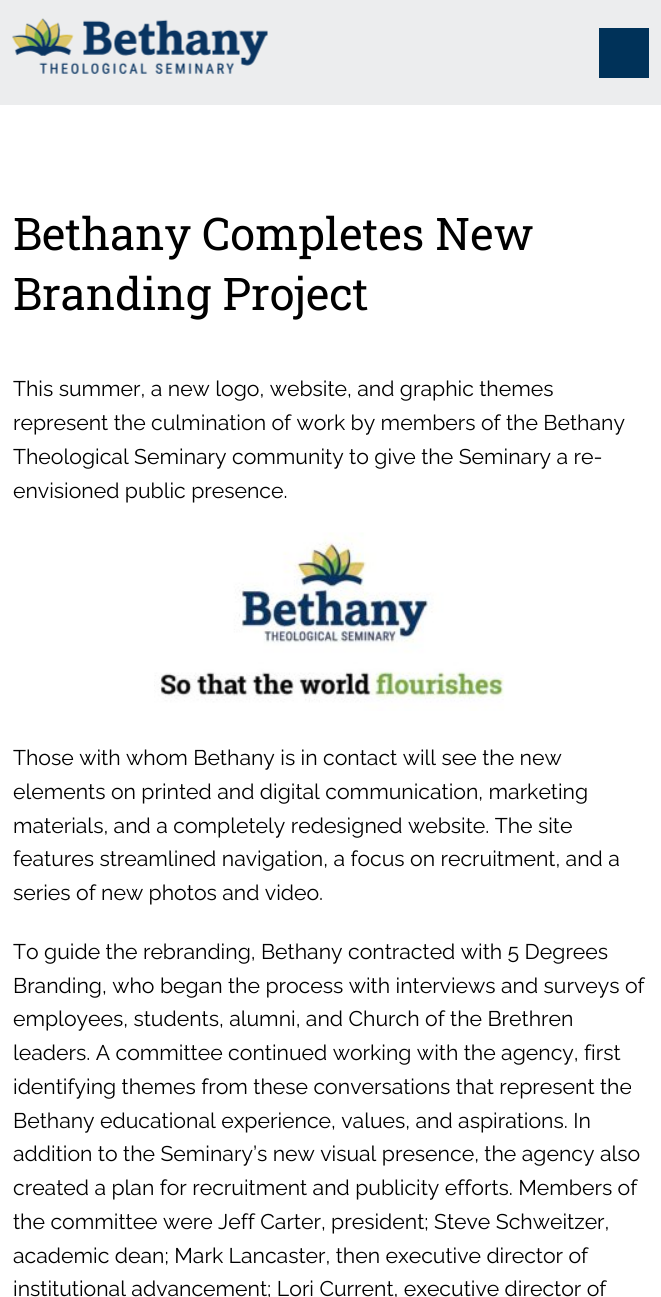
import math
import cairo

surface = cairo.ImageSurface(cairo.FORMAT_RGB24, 661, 1297)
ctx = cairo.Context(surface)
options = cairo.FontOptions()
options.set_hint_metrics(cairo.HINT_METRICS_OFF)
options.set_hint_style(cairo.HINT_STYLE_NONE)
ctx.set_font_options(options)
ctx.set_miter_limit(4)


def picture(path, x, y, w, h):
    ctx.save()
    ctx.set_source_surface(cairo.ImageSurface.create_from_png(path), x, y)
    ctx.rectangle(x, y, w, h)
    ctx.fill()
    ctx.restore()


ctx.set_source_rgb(1, 1, 1)
ctx.paint()
ctx.set_source_rgb(0.922, 0.929, 0.933)
ctx.rectangle(0, 0, 661, 105)
ctx.fill()
picture("img1.png", 12, 18, 256, 56)
ctx.set_source_rgb(0, 0.196, 0.349)
ctx.rectangle(599, 28, 50, 50)
ctx.fill()
ctx.select_font_face("Roboto Slab")
ctx.set_font_size(45)
ctx.set_source_rgb(0, 0, 0)
ctx.move_to(13, 250)
ctx.show_text("Bethany Completes New")
ctx.move_to(13, 310)
ctx.show_text("Branding Project")
ctx.select_font_face("Raleway")
ctx.set_font_size(21.25)
ctx.move_to(13, 396)
ctx.show_text("This summer, a new logo, website, and graphic themes")
ctx.move_to(13, 430)
ctx.show_text("represent the culmination of work by members of the Bethany")
ctx.move_to(13, 464)
ctx.show_text("Theological Seminary community to give the Seminary a re-")
ctx.move_to(13, 498)
ctx.show_text("envisioned public presence.")
picture("img2.png", 154, 532, 351, 179)
ctx.move_to(13, 765)
ctx.show_text("Those with whom Bethany is in contact will see the new")
ctx.move_to(13, 799)
ctx.show_text("elements on printed and digital communication, marketing")
ctx.move_to(13, 833)
ctx.show_text("materials, and a completely redesigned website. The site")
ctx.move_to(13, 866)
ctx.show_text("features streamlined navigation, a focus on recruitment, and a")
ctx.move_to(13, 900)
ctx.show_text("series of new photos and video.")
ctx.move_to(13, 959)
ctx.show_text("To guide the rebranding, Bethany contracted with 5 Degrees")
ctx.move_to(13, 993)
ctx.show_text("Branding, who began the process with interviews and surveys of")
ctx.move_to(13, 1026)
ctx.show_text("employees, students, alumni, and Church of the Brethren")
ctx.move_to(13, 1060)
ctx.show_text("leaders. A committee continued working with the agency, first")
ctx.move_to(13, 1094)
ctx.show_text("identifying themes from these conversations that represent the")
ctx.move_to(13, 1128)
ctx.show_text("Bethany educational experience, values, and aspirations. In")
ctx.move_to(13, 1161)
ctx.show_text("addition to the Seminary’s new visual presence, the agency also")
ctx.move_to(13, 1195)
ctx.show_text("created a plan for recruitment and publicity efforts. Members of")
ctx.move_to(13, 1229)
ctx.show_text("the committee were Jeff Carter, president; Steve Schweitzer,")
ctx.move_to(13, 1263)
ctx.show_text("academic dean; Mark Lancaster, then executive director of")
ctx.move_to(13, 1296)
ctx.show_text("institutional advancement; Lori Current, executive director of")
surface.write_to_png("page.png")
